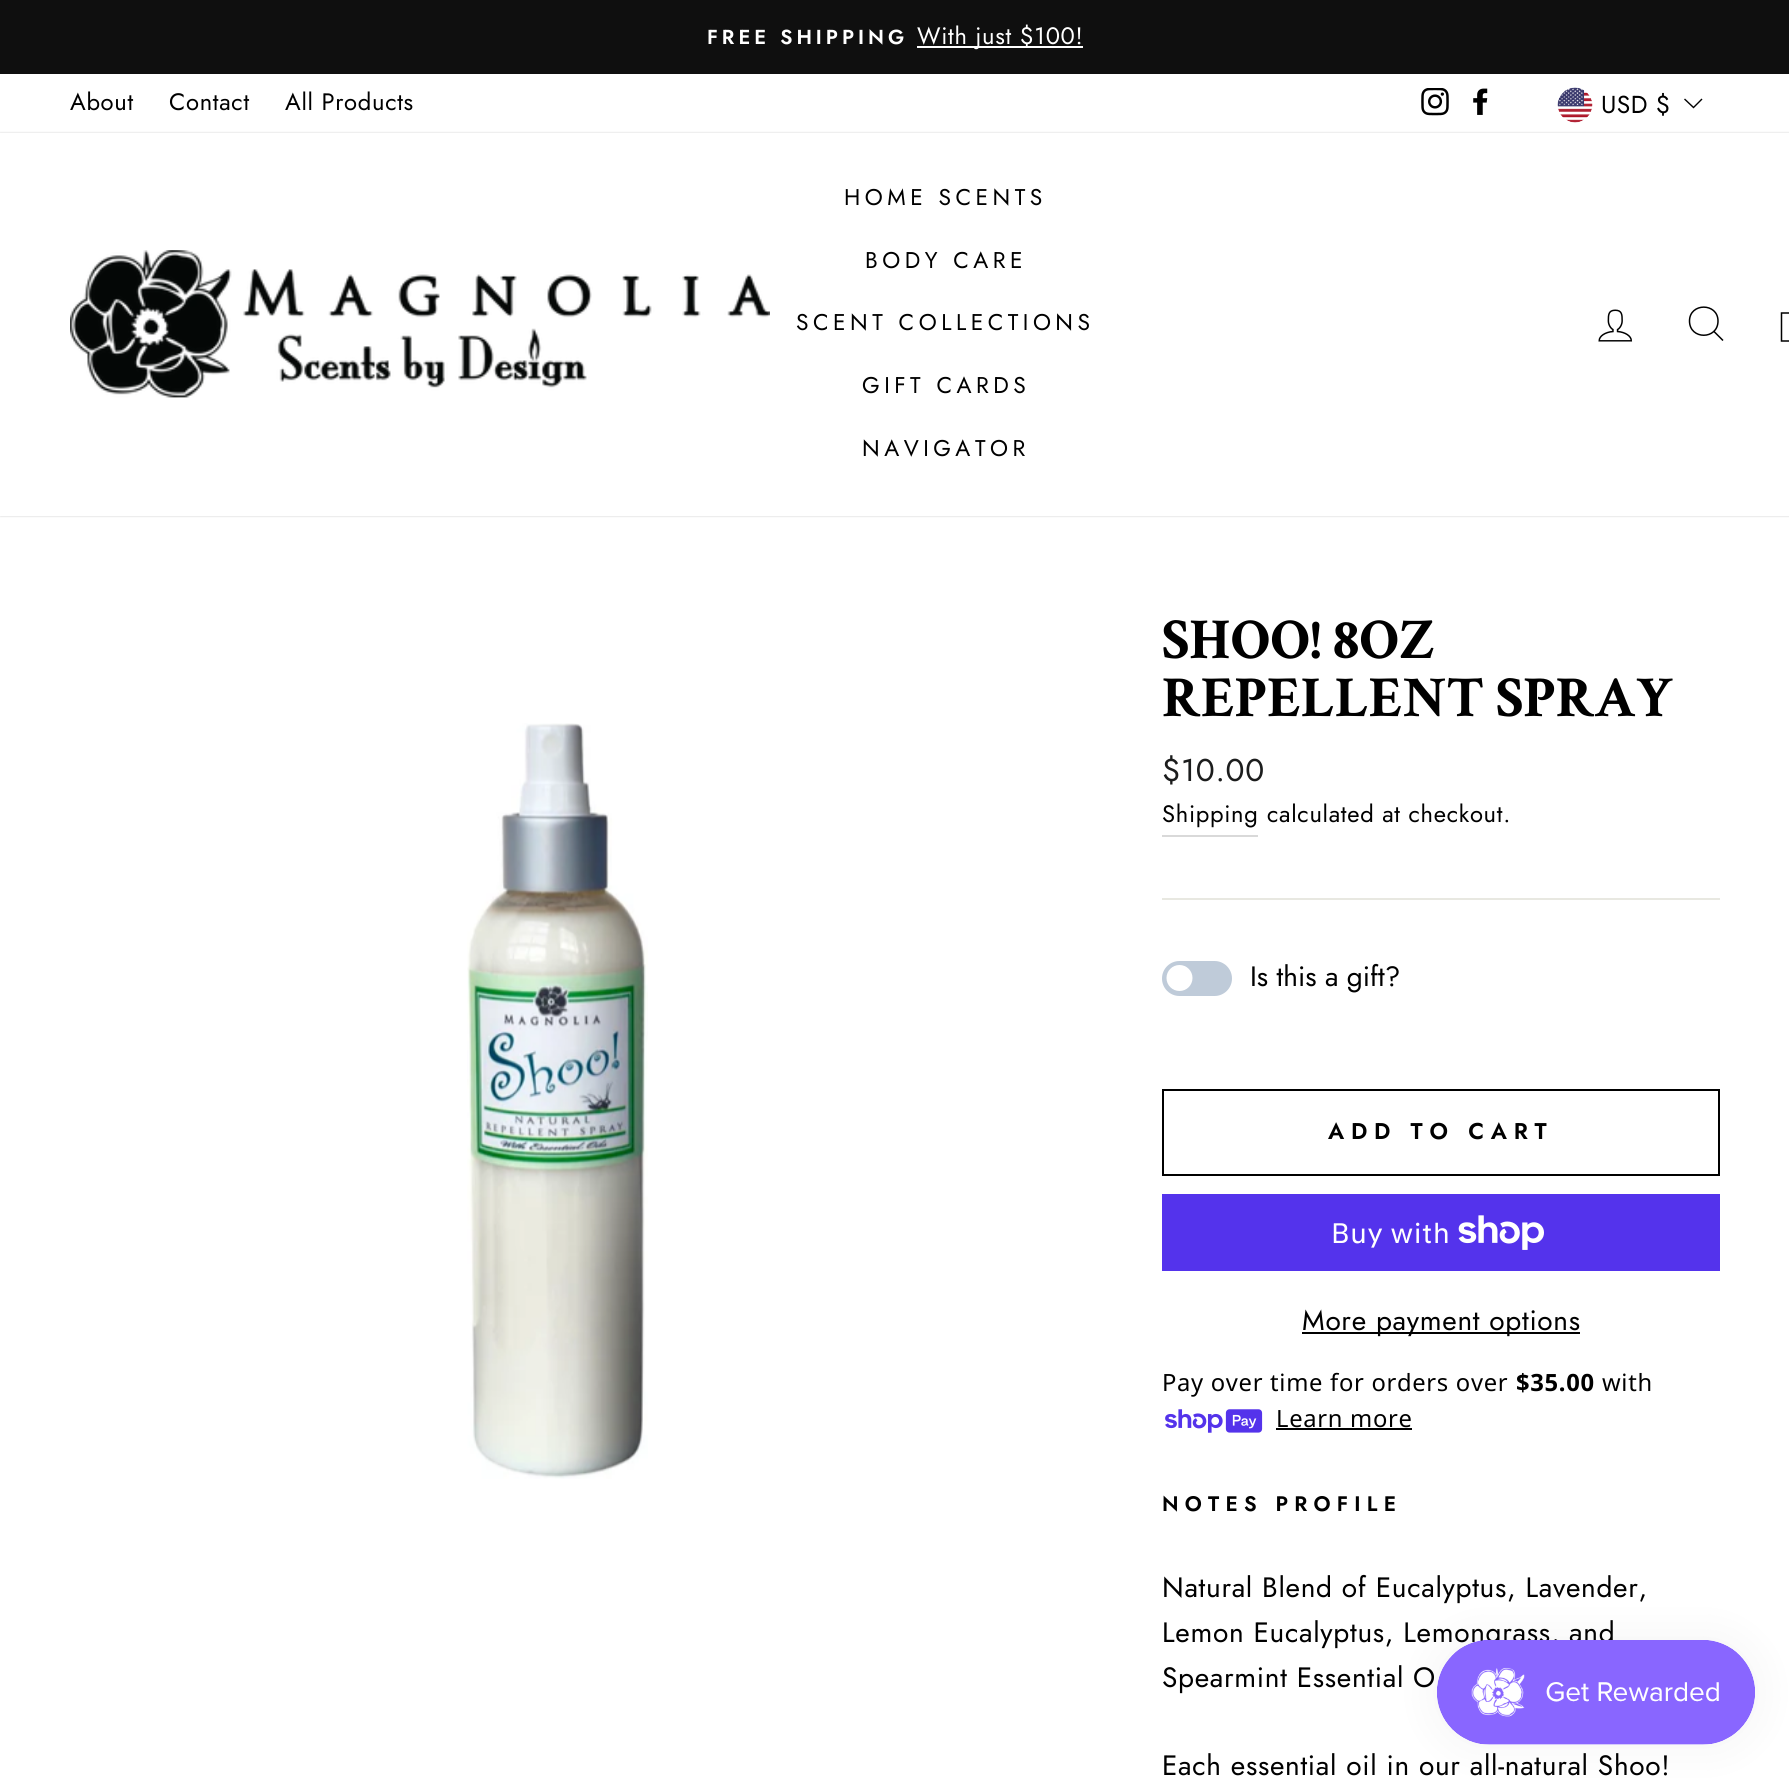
import math
import cairo

surface = cairo.ImageSurface(cairo.FORMAT_RGB24, 1789, 1787)
ctx = cairo.Context(surface)
options = cairo.FontOptions()
options.set_hint_metrics(cairo.HINT_METRICS_OFF)
options.set_hint_style(cairo.HINT_STYLE_NONE)
ctx.set_font_options(options)
ctx.set_miter_limit(4)


def spaced_text(x, y, s, letter, word):
    ctx.move_to(x, y)
    for ch in s:
        ctx.show_text(ch)
        ctx.rel_move_to(letter + word * (ch == ' '), 0)


def round_rect(x, y, w, h, r):
    ctx.new_sub_path()
    for i, (u, v) in enumerate([(x + w - r, y + h - r), (x + r, y + h - r), (x + r, y + r), (x + w - r, y + r)]):
        ctx.arc(u, v, r, i * math.pi / 2, (i + 1) * math.pi / 2)
    ctx.close_path()


def shadow(x, y, w, h, r, blur, alpha):
    ctx.push_group_with_content(cairo.CONTENT_ALPHA)
    ctx.set_operator(cairo.OPERATOR_SOURCE)
    for i in range(15, -16, -2):
        e = blur * i / 6
        if min(w, h) + 2 * e > 0:
            ctx.set_source_rgba(0, 0, 0, alpha * math.erfc((i - 1) / 8.5) / 2)
            round_rect(x - e, y - e, w + 2 * e, h + 2 * e, max(0, min(r + e + blur * .6, min(w, h) / 2 + e)))
            ctx.fill()
    ctx.mask(ctx.pop_group())


def picture(path, x, y, w, h):
    ctx.save()
    ctx.set_source_surface(cairo.ImageSurface.create_from_png(path), x, y)
    ctx.rectangle(x, y, w, h)
    ctx.fill()
    ctx.restore()


ctx.set_source_rgb(1, 1, 1)
ctx.paint()
ctx.set_source_rgb(0.059, 0.059, 0.059)
ctx.rectangle(0, 0, 1789, 74)
ctx.fill()
ctx.select_font_face("Jost SemiBold")
ctx.set_font_size(20.25)
ctx.set_source_rgb(1, 1, 1)
spaced_text(707, 44, "FREE SHIPPING", 4, 0)
ctx.rectangle(917, 46, 166, 2)
ctx.fill()
ctx.select_font_face("Jost")
ctx.set_font_size(23.75)
spaced_text(917, 44, "With just $100!", 0.7, 0)
ctx.set_source_rgb(0, 0, 0)
spaced_text(70, 110, "About", 0.7, 0)
spaced_text(169, 110, "Contact", 0.7, 0)
spaced_text(285, 110, "All Products", 0.7, 0)
picture("img1.png", 1421, 88, 28, 28)
picture("img2.png", 1473, 88, 15, 27)
picture("img3.png", 1557, 87, 36, 36)
ctx.set_font_size(24.5)
spaced_text(1601, 113, "USD $", 0.5, 0)
ctx.new_path()
ctx.move_to(1684.5, 99)
ctx.line_to(1693.5, 107.5)
ctx.line_to(1702, 99)
ctx.set_line_width(1.4)
ctx.stroke()
ctx.save()
ctx.set_fill_rule(cairo.FILL_RULE_EVEN_ODD)
ctx.new_path()
ctx.move_to(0, 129)
ctx.line_to(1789, 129)
ctx.line_to(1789, 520)
ctx.line_to(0, 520)
ctx.close_path()
ctx.move_to(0, 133)
ctx.line_to(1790, 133)
ctx.line_to(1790, 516)
ctx.line_to(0, 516)
ctx.close_path()
ctx.clip()
ctx.set_source_rgb(0, 0, 0)
shadow(0, 133, 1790, 383, 0, 1, 0.2)
ctx.restore()
picture("img4.png", 70, 250, 700, 148)
ctx.set_font_size(22.75)
spaced_text(844, 205, "HOME SCENTS", 4.5, 0)
spaced_text(865, 268, "BODY CARE", 4.5, 0)
spaced_text(796, 330, "SCENT COLLECTIONS", 4.5, 0)
spaced_text(862, 393, "GIFT CARDS", 4.5, 0)
spaced_text(862, 456, "NAVIGATOR", 4.5, 0)
picture("img5.png", 1598, 309, 35, 33)
ctx.new_path()
ctx.move_to(1718, 321)
ctx.curve_to(1718, 340, 1689.5, 340, 1689.5, 321)
ctx.curve_to(1689.5, 302.5, 1718, 302.5, 1718, 321)
ctx.close_path()
ctx.move_to(1723, 340.5)
ctx.line_to(1714, 331.5)
ctx.set_line_width(1.5)
ctx.stroke()
ctx.new_path()
ctx.move_to(1781.5, 313)
ctx.line_to(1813, 313)
ctx.line_to(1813, 341)
ctx.line_to(1781.5, 341)
ctx.close_path()
ctx.stroke()
picture("img6.png", 467, 723, 181, 756)
ctx.select_font_face("Crimson Text", cairo.FONT_SLANT_NORMAL, cairo.FONT_WEIGHT_BOLD)
ctx.set_font_size(58)
ctx.move_to(1162, 658)
ctx.show_text("SHOO! 8OZ")
ctx.move_to(1162, 716)
ctx.show_text("REPELLENT SPRAY")
ctx.select_font_face("Jost")
ctx.set_font_size(31.5)
ctx.set_source_rgb(0.11, 0.114, 0.114)
spaced_text(1162, 781, "$10.00", 0.7, 0)
ctx.set_source_rgb(0.851, 0.851, 0.851)
ctx.rectangle(1162, 835, 96, 2)
ctx.fill()
ctx.set_font_size(23.75)
ctx.set_source_rgb(0, 0, 0)
spaced_text(1162, 822, "Shipping", 0.7, 0)
spaced_text(1267, 822, "calculated at checkout.", 0.7, 0)
ctx.set_source_rgb(0.91, 0.91, 0.882)
ctx.rectangle(1162, 898, 558, 2)
ctx.fill()
ctx.set_source_rgb(0.749, 0.796, 0.851)
round_rect(1162, 961, 70, 35, 17.5)
ctx.fill()
ctx.set_source_rgb(1, 1, 1)
ctx.arc(1179.5, 978, 13, 0, 2 * math.pi)
ctx.fill()
ctx.set_font_size(28)
ctx.set_source_rgb(0, 0, 0)
ctx.move_to(1250, 986)
ctx.show_text("Is this a gift?")
ctx.rectangle(1163, 1090, 556, 85)
ctx.set_line_width(2)
ctx.stroke()
ctx.select_font_face("Jost SemiBold")
ctx.set_font_size(22.75)
spaced_text(1328, 1139, "ADD TO CART", 6.75, 0)
ctx.set_source_rgb(0.329, 0.2, 0.922)
ctx.rectangle(1162, 1194, 558, 77)
ctx.fill()
ctx.select_font_face("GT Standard")
ctx.set_font_size(28)
ctx.set_source_rgb(1, 1, 1)
spaced_text(1331, 1243, "Buy with", 0.7, 0)
picture("img7.png", 1458, 1215, 86, 35)
ctx.set_source_rgb(0, 0, 0)
ctx.rectangle(1302, 1332, 278, 2)
ctx.fill()
ctx.select_font_face("Jost")
spaced_text(1302, 1330, "More payment options", 0.7, 0)
ctx.select_font_face("Noto Sans")
ctx.set_font_size(23.75)
spaced_text(1162, 1391, "Pay over time for orders over", 0.7, 0)
ctx.select_font_face("Noto Sans", cairo.FONT_SLANT_NORMAL, cairo.FONT_WEIGHT_BOLD)
spaced_text(1516, 1391, "$35.00", 0.7, 0)
ctx.select_font_face("Noto Sans")
spaced_text(1602, 1391, "with", 0.7, 0)
picture("img8.png", 1165, 1409, 98, 24)
spaced_text(1276, 1427, "Learn more", 0.7, 0)
ctx.rectangle(1276, 1428, 136, 2)
ctx.fill()
ctx.select_font_face("Jost SemiBold")
ctx.set_font_size(21)
spaced_text(1162, 1511, "NOTES PROFILE", 6.25, 0)
ctx.select_font_face("Jost")
ctx.set_font_size(28)
spaced_text(1162, 1597, "Natural Blend of Eucalyptus, Lavender,", 0.7, 0)
spaced_text(1162, 1642, "Lemon Eucalyptus, Lemongrass, and", 0.7, 0)
spaced_text(1162, 1687, "Spearmint Essential O", 0.7, 0)
spaced_text(1162, 1775, "Each essential oil in our all-natural Shoo!", 0.7, 0)
ctx.set_source_rgb(0, 0, 0)
shadow(1437, 1640, 318, 105, 52.5, 22, 0.05)
picture("img9.png", 1437, 1640, 318, 105)
surface.write_to_png("page.png")
